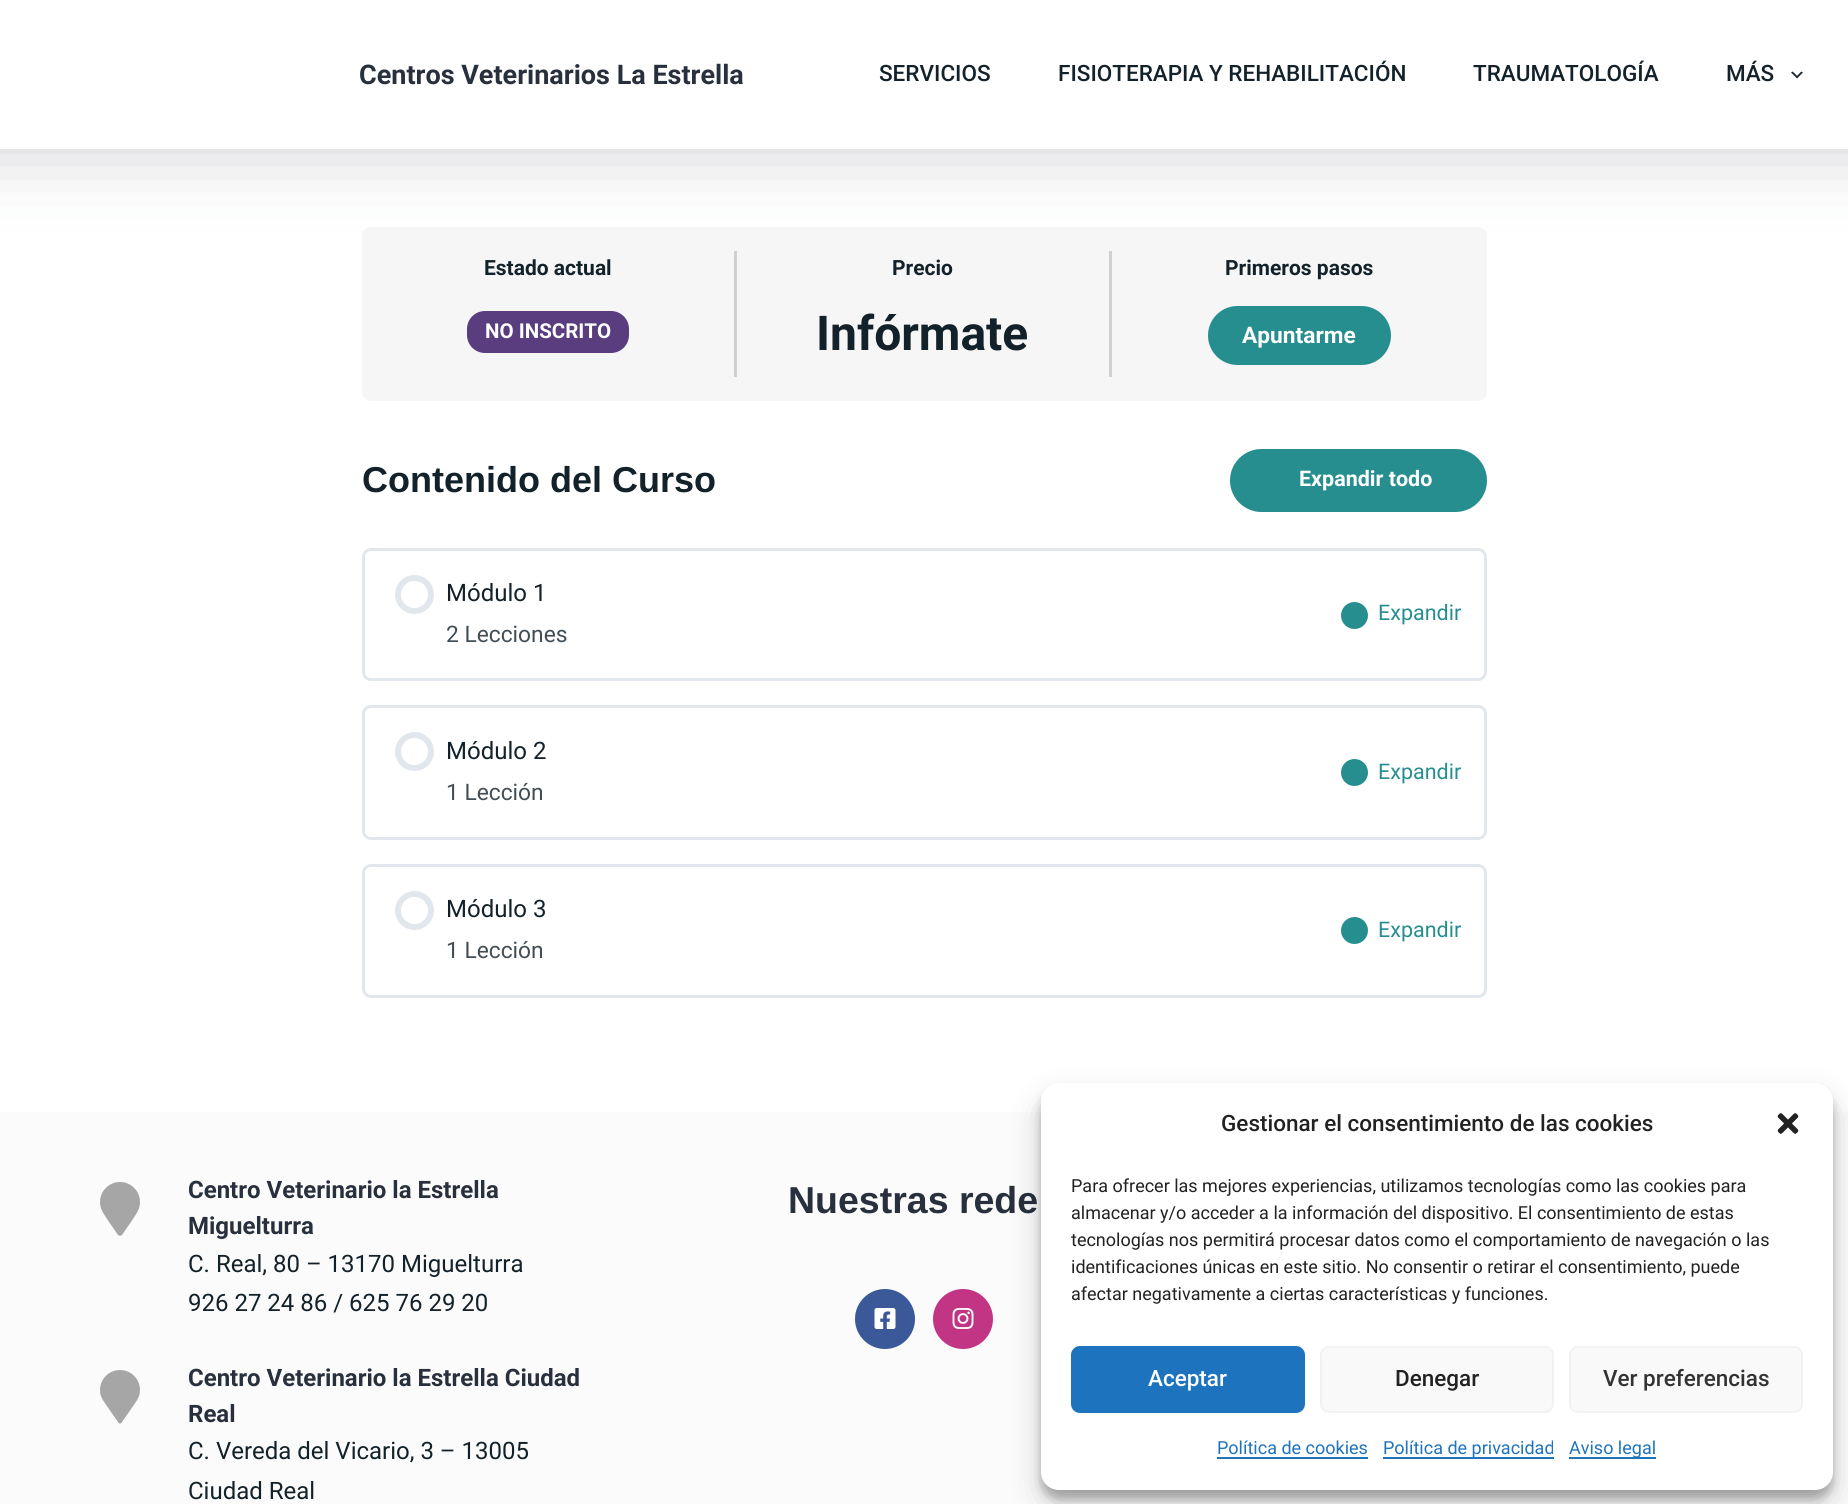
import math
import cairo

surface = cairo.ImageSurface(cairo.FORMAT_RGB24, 1848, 1504)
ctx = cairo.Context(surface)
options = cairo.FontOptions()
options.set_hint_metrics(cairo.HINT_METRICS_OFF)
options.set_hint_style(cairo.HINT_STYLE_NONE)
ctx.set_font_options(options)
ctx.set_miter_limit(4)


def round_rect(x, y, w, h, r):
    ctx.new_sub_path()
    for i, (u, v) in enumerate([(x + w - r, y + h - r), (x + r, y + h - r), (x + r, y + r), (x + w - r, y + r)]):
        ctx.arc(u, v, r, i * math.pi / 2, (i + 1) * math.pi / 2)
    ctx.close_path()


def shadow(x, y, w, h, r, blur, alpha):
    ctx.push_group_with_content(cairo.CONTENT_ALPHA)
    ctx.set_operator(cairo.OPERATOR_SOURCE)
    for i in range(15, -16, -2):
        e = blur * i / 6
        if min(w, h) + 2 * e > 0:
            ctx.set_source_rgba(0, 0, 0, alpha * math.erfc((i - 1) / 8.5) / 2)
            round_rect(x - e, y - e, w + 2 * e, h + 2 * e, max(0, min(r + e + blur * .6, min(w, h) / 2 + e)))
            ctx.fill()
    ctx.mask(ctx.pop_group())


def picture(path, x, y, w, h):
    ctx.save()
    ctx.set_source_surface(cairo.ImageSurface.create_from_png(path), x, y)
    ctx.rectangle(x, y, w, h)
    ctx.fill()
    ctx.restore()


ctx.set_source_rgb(1, 1, 1)
ctx.paint()
ctx.set_source_rgb(0.961, 0.961, 0.961)
round_rect(362, 227, 1125, 174, 9)
ctx.fill()
ctx.set_source_rgb(0.816, 0.816, 0.816)
ctx.rectangle(734, 251, 3, 126)
ctx.fill()
ctx.rectangle(1109, 251, 3, 126)
ctx.fill()
ctx.set_source_rgb(0.157, 0.188, 0.239)
shadow(-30, -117, 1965, 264, 0, 39, 0.25)
ctx.set_source_rgb(1, 1, 1)
ctx.rectangle(0, 0, 1848, 149)
ctx.fill()
ctx.select_font_face("Roboto", cairo.FONT_SLANT_NORMAL, cairo.FONT_WEIGHT_BOLD)
ctx.set_font_size(27)
ctx.set_source_rgb(0.157, 0.188, 0.239)
ctx.move_to(359, 84)
ctx.show_text("Centros Veterinarios La Estrella")
ctx.select_font_face("Roboto Medium")
ctx.set_font_size(22.5)
ctx.set_source_rgb(0.075, 0.133, 0.165)
ctx.move_to(879, 81)
ctx.show_text("SERVICIOS")
ctx.move_to(1058, 81)
ctx.show_text("FISIOTERAPIA Y REHABILITACIÓN")
ctx.move_to(1473, 81)
ctx.show_text("TRAUMATOLOGÍA")
ctx.move_to(1726, 81)
ctx.show_text("MÁS")
picture("img1.png", 1791, 71, 12, 8)
ctx.select_font_face("Roboto", cairo.FONT_SLANT_NORMAL, cairo.FONT_WEIGHT_BOLD)
ctx.set_font_size(21)
ctx.move_to(484, 275)
ctx.show_text("Estado actual")
ctx.set_source_rgb(0.353, 0.239, 0.498)
round_rect(467, 311, 162, 42, 18)
ctx.fill()
ctx.set_font_size(20.5)
ctx.set_source_rgb(1, 1, 1)
ctx.move_to(485, 338)
ctx.show_text("NO INSCRITO")
ctx.set_font_size(21)
ctx.set_source_rgb(0.075, 0.133, 0.165)
ctx.move_to(892, 275)
ctx.show_text("Precio")
ctx.set_font_size(48)
ctx.move_to(816, 350)
ctx.show_text("Infórmate")
ctx.set_font_size(21)
ctx.move_to(1225, 275)
ctx.show_text("Primeros pasos")
ctx.set_source_rgb(0.153, 0.557, 0.561)
round_rect(1208, 306, 183, 59, 29.5)
ctx.fill()
ctx.set_font_size(22.75)
ctx.set_source_rgb(1, 1, 1)
ctx.move_to(1242, 343)
ctx.show_text("Apuntarme")
ctx.select_font_face("Liberation Sans", cairo.FONT_SLANT_NORMAL, cairo.FONT_WEIGHT_BOLD)
ctx.set_font_size(36)
ctx.set_source_rgb(0.075, 0.133, 0.165)
ctx.move_to(362, 492)
ctx.show_text("Contenido del Curso")
ctx.set_source_rgb(0.153, 0.557, 0.561)
round_rect(1230, 449, 257, 63, 31.5)
ctx.fill()
ctx.select_font_face("Roboto", cairo.FONT_SLANT_NORMAL, cairo.FONT_WEIGHT_BOLD)
ctx.set_font_size(21.5)
ctx.set_source_rgb(1, 1, 1)
ctx.move_to(1299, 486)
ctx.show_text("Expandir todo")
round_rect(363.5, 549.5, 1122, 130, 7.5)
ctx.set_source_rgb(0.886, 0.906, 0.929)
ctx.set_line_width(3)
ctx.stroke()
ctx.arc(414.5, 594.5, 16.5, 0, 2 * math.pi)
ctx.set_line_width(6)
ctx.stroke()
ctx.select_font_face("Roboto")
ctx.set_font_size(24)
ctx.set_source_rgb(0.075, 0.133, 0.165)
ctx.move_to(446, 601)
ctx.show_text("Módulo 1")
ctx.set_font_size(22.75)
ctx.set_source_rgb(0.259, 0.306, 0.333)
ctx.move_to(446, 642)
ctx.show_text("2 Lecciones")
ctx.set_source_rgb(0.153, 0.557, 0.561)
ctx.new_path()
ctx.arc(1354.5, 615.5, 13.5, 0, 2 * math.pi)
ctx.fill()
ctx.set_font_size(21.5)
ctx.move_to(1378, 620)
ctx.show_text("Expandir")
round_rect(363.5, 706.5, 1122, 132, 7.5)
ctx.set_source_rgb(0.886, 0.906, 0.929)
ctx.set_line_width(3)
ctx.stroke()
ctx.arc(414.5, 751.5, 16.5, 0, 2 * math.pi)
ctx.set_line_width(6)
ctx.stroke()
ctx.set_font_size(24)
ctx.set_source_rgb(0.075, 0.133, 0.165)
ctx.move_to(446, 759)
ctx.show_text("Módulo 2")
ctx.set_font_size(22.75)
ctx.set_source_rgb(0.259, 0.306, 0.333)
ctx.move_to(446, 800)
ctx.show_text("1 Lección")
ctx.set_source_rgb(0.153, 0.557, 0.561)
ctx.new_path()
ctx.arc(1354.5, 772.5, 13.5, 0, 2 * math.pi)
ctx.fill()
ctx.set_font_size(21.5)
ctx.move_to(1378, 779)
ctx.show_text("Expandir")
round_rect(363.5, 865.5, 1122, 131, 7.5)
ctx.set_source_rgb(0.886, 0.906, 0.929)
ctx.set_line_width(3)
ctx.stroke()
ctx.arc(414.5, 910.5, 16.5, 0, 2 * math.pi)
ctx.set_line_width(6)
ctx.stroke()
ctx.set_font_size(24)
ctx.set_source_rgb(0.075, 0.133, 0.165)
ctx.move_to(446, 917)
ctx.show_text("Módulo 3")
ctx.set_font_size(22.75)
ctx.set_source_rgb(0.259, 0.306, 0.333)
ctx.move_to(446, 958)
ctx.show_text("1 Lección")
ctx.set_source_rgb(0.153, 0.557, 0.561)
ctx.new_path()
ctx.arc(1354.5, 930.5, 13.5, 0, 2 * math.pi)
ctx.fill()
ctx.set_font_size(21.5)
ctx.move_to(1378, 937)
ctx.show_text("Expandir")
ctx.set_source_rgb(0.984, 0.984, 0.984)
ctx.rectangle(0, 1112, 1848, 392)
ctx.fill()
ctx.set_source_rgb(0.651, 0.651, 0.651)
ctx.new_path()
ctx.move_to(118, 1235)
ctx.curve_to(103, 1213, 100, 1210, 100, 1202)
ctx.curve_to(100, 1191, 109, 1182, 120, 1182)
ctx.curve_to(131, 1182, 140, 1191, 140, 1202)
ctx.curve_to(140, 1210, 137, 1213, 122, 1235)
ctx.curve_to(121, 1236, 119, 1236, 118, 1235)
ctx.close_path()
ctx.fill()
ctx.select_font_face("Roboto", cairo.FONT_SLANT_NORMAL, cairo.FONT_WEIGHT_BOLD)
ctx.set_font_size(24)
ctx.set_source_rgb(0.157, 0.188, 0.239)
ctx.move_to(188, 1198)
ctx.show_text("Centro Veterinario la Estrella")
ctx.move_to(188, 1234)
ctx.show_text("Miguelturra")
ctx.select_font_face("Roboto")
ctx.set_source_rgb(0.075, 0.133, 0.165)
ctx.move_to(188, 1272)
ctx.show_text("C. Real, 80 – 13170 Miguelturra")
ctx.move_to(188, 1311)
ctx.show_text("926 27 24 86 / 625 76 29 20")
ctx.set_source_rgb(0.651, 0.651, 0.651)
ctx.new_path()
ctx.move_to(118, 1422)
ctx.curve_to(103, 1400, 100, 1398, 100, 1390)
ctx.curve_to(100, 1379, 109, 1370, 120, 1370)
ctx.curve_to(131, 1370, 140, 1379, 140, 1390)
ctx.curve_to(140, 1398, 137, 1400, 122, 1422)
ctx.curve_to(121, 1424, 119, 1424, 118, 1422)
ctx.close_path()
ctx.fill()
ctx.select_font_face("Roboto", cairo.FONT_SLANT_NORMAL, cairo.FONT_WEIGHT_BOLD)
ctx.set_source_rgb(0.157, 0.188, 0.239)
ctx.move_to(188, 1386)
ctx.show_text("Centro Veterinario la Estrella Ciudad")
ctx.move_to(188, 1422)
ctx.show_text("Real")
ctx.select_font_face("Roboto")
ctx.set_source_rgb(0.075, 0.133, 0.165)
ctx.move_to(188, 1459)
ctx.show_text("C. Vereda del Vicario, 3 – 13005")
ctx.move_to(188, 1499)
ctx.show_text("Ciudad Real")
ctx.select_font_face("Liberation Sans", cairo.FONT_SLANT_NORMAL, cairo.FONT_WEIGHT_BOLD)
ctx.set_font_size(37.5)
ctx.set_source_rgb(0.157, 0.188, 0.239)
ctx.move_to(788, 1213)
ctx.show_text("Nuestras rede")
ctx.set_source_rgb(0.231, 0.349, 0.596)
ctx.new_path()
ctx.arc(885, 1319, 30, 0, 2 * math.pi)
ctx.fill()
picture("img2.png", 874, 1308, 22, 21)
ctx.set_source_rgb(0.757, 0.208, 0.518)
ctx.arc(963, 1319, 30, 0, 2 * math.pi)
ctx.fill()
picture("img3.png", 952, 1308, 22, 21)
ctx.set_source_rgb(0, 0, 0)
shadow(1041, 1092, 792, 407, 18, 4.5, 0.23)
shadow(1041, 1098, 792, 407, 18, 15, 0.19)
ctx.set_source_rgb(1, 1, 1)
round_rect(1041, 1083, 792, 407, 18)
ctx.fill()
ctx.select_font_face("Roboto Medium")
ctx.set_font_size(22.5)
ctx.set_source_rgb(0.133, 0.133, 0.133)
ctx.move_to(1221, 1131)
ctx.show_text("Gestionar el consentimiento de las cookies")
picture("img4.png", 1777, 1113, 22, 21)
ctx.select_font_face("Roboto")
ctx.set_font_size(18)
ctx.move_to(1071, 1192)
ctx.show_text("Para ofrecer las mejores experiencias, utilizamos tecnologías como las cookies para")
ctx.move_to(1071, 1219)
ctx.show_text("almacenar y/o acceder a la información del dispositivo. El consentimiento de estas")
ctx.move_to(1071, 1246)
ctx.show_text("tecnologías nos permitirá procesar datos como el comportamiento de navegación o las")
ctx.move_to(1071, 1273)
ctx.show_text("identificaciones únicas en este sitio. No consentir o retirar el consentimiento, puede")
ctx.move_to(1071, 1300)
ctx.show_text("afectar negativamente a ciertas características y funciones.")
ctx.set_source_rgb(0.118, 0.451, 0.745)
round_rect(1072, 1347, 232, 65, 8)
ctx.fill_preserve()
ctx.set_line_width(2)
ctx.stroke()
ctx.select_font_face("Roboto Medium")
ctx.set_font_size(22.5)
ctx.set_source_rgb(1, 1, 1)
ctx.move_to(1148, 1386)
ctx.show_text("Aceptar")
ctx.set_source_rgb(0.976, 0.976, 0.976)
round_rect(1321, 1347, 232, 65, 8)
ctx.fill_preserve()
ctx.set_source_rgb(0.949, 0.949, 0.949)
ctx.stroke()
ctx.set_source_rgb(0.133, 0.133, 0.133)
ctx.move_to(1395, 1386)
ctx.show_text("Denegar")
ctx.set_source_rgb(0.976, 0.976, 0.976)
round_rect(1570, 1347, 232, 65, 8)
ctx.fill_preserve()
ctx.set_source_rgb(0.949, 0.949, 0.949)
ctx.stroke()
ctx.set_source_rgb(0.2, 0.2, 0.2)
ctx.move_to(1603, 1386)
ctx.show_text("Ver preferencias")
ctx.select_font_face("Roboto")
ctx.set_font_size(18)
ctx.set_source_rgb(0.118, 0.451, 0.745)
ctx.move_to(1217, 1454)
ctx.show_text("Política de cookies")
ctx.rectangle(1217, 1457, 151, 2)
ctx.fill()
ctx.rectangle(1383, 1457, 171, 2)
ctx.fill()
ctx.move_to(1383, 1454)
ctx.show_text("Política de privacidad")
ctx.rectangle(1569, 1457, 87, 2)
ctx.fill()
ctx.move_to(1569, 1454)
ctx.show_text("Aviso legal")
surface.write_to_png("page.png")
